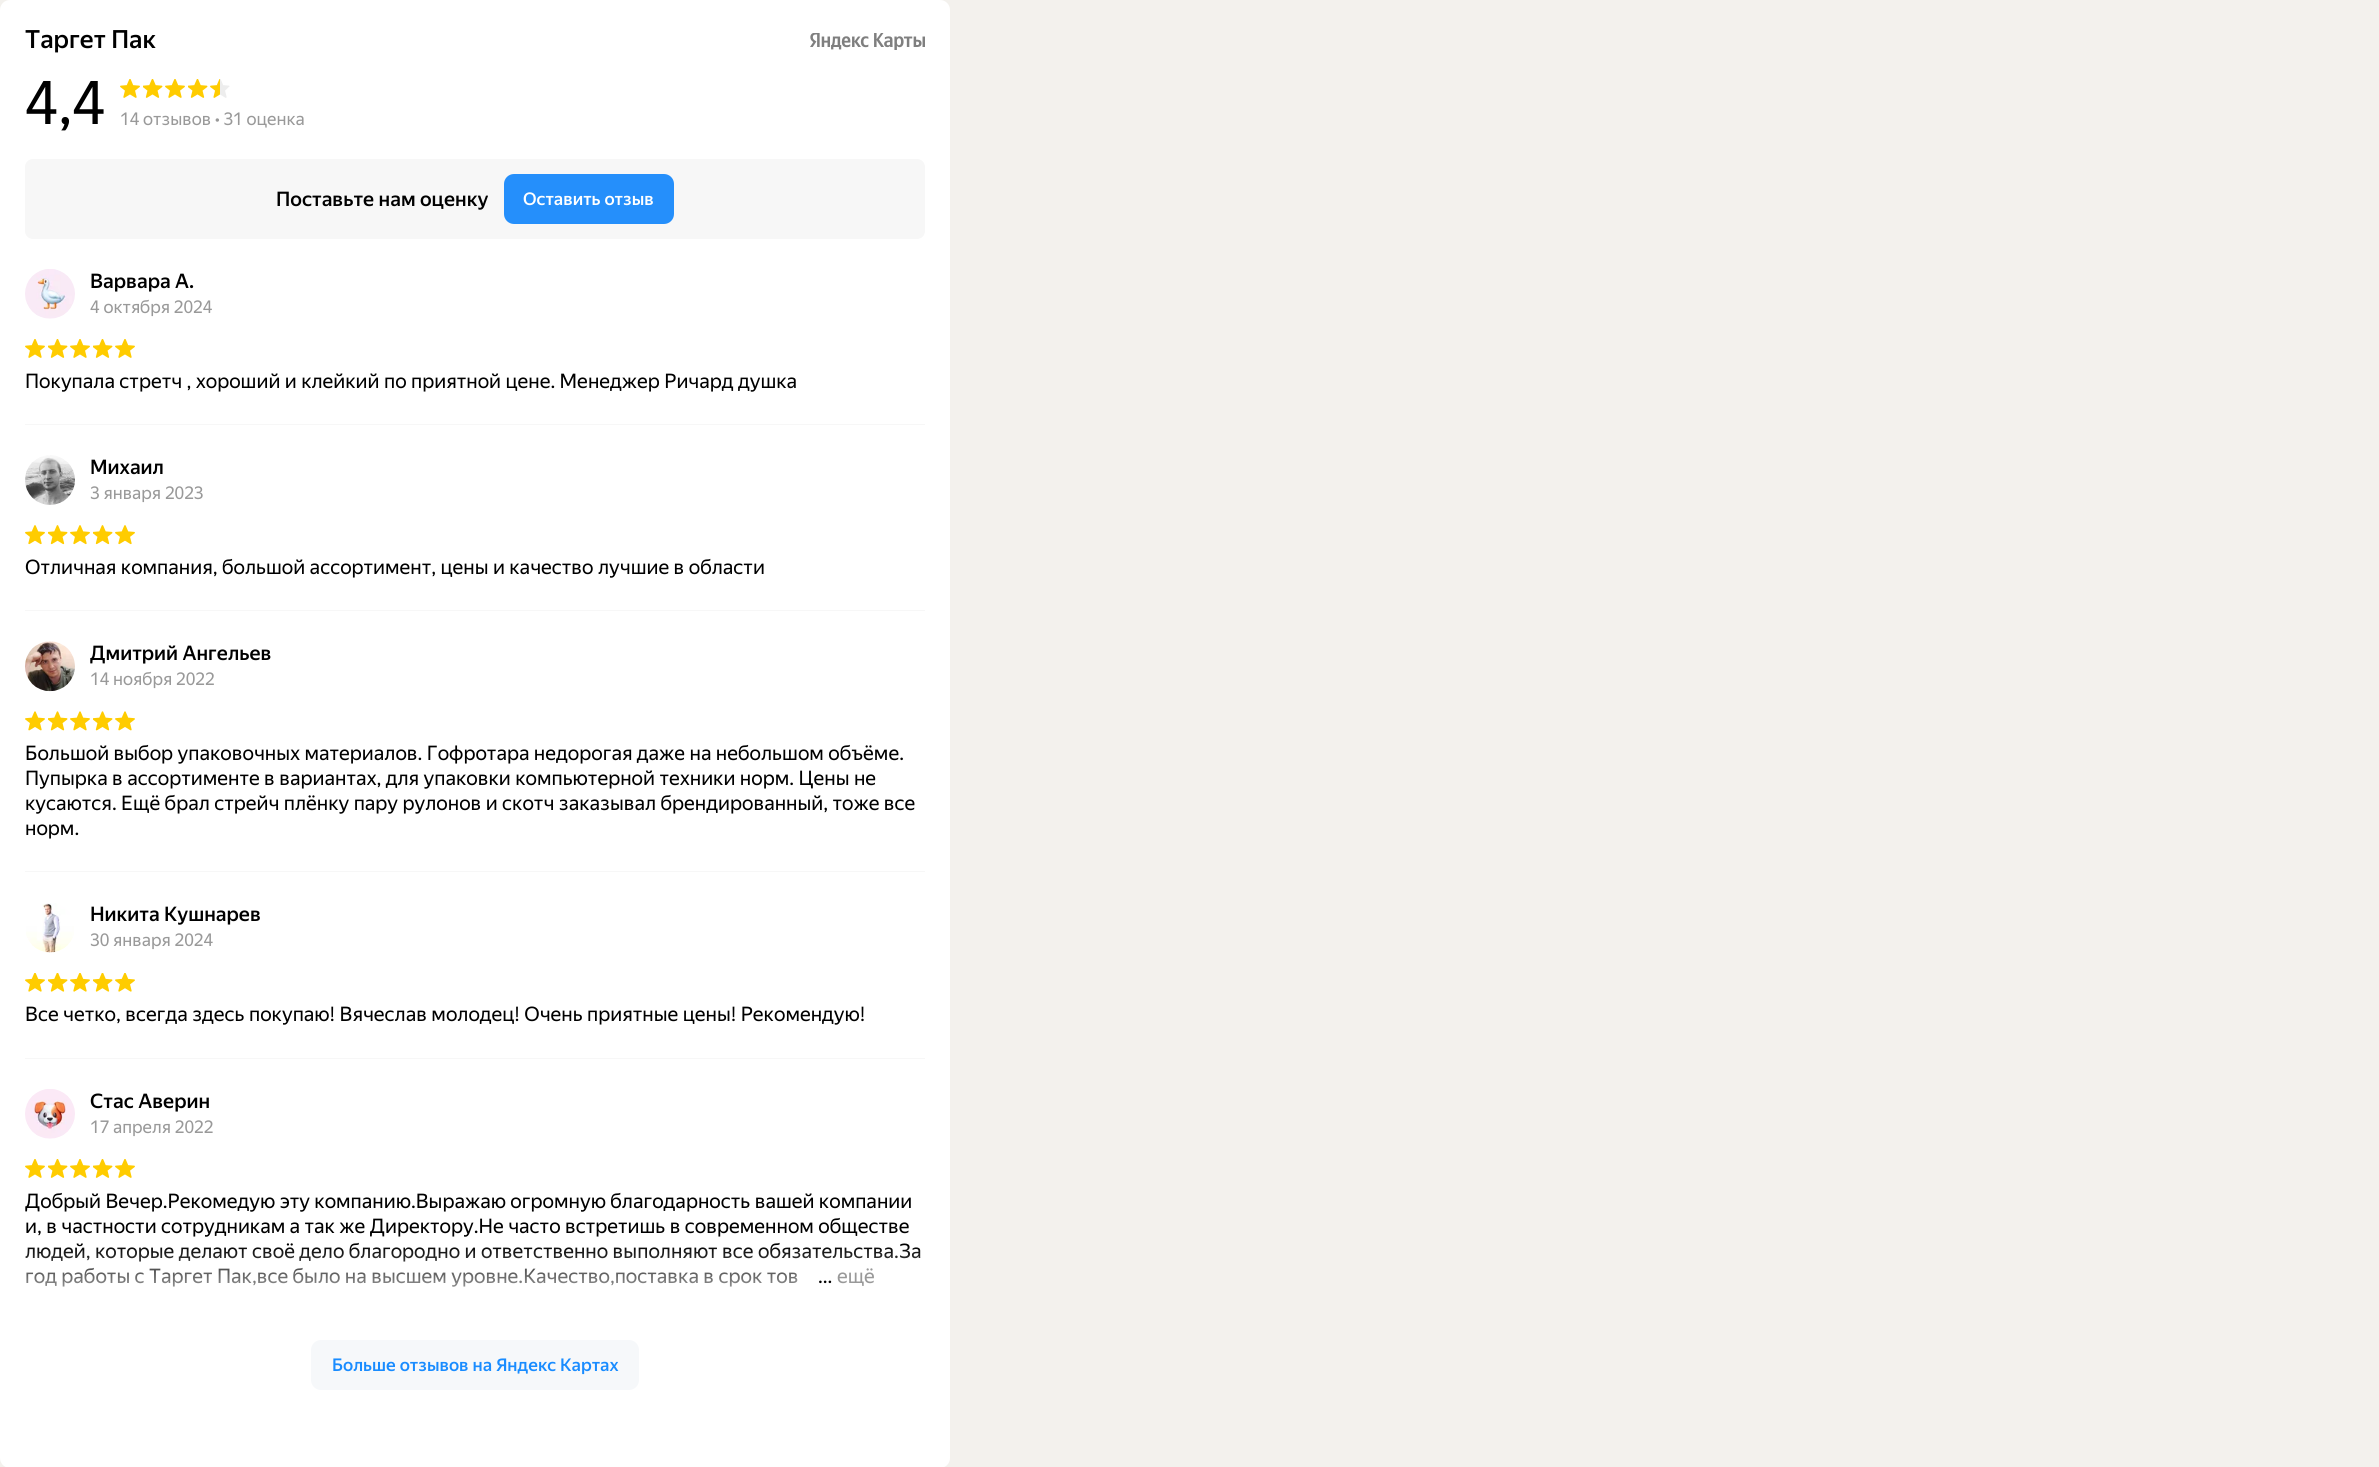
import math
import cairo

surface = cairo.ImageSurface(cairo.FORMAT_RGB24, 2379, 1467)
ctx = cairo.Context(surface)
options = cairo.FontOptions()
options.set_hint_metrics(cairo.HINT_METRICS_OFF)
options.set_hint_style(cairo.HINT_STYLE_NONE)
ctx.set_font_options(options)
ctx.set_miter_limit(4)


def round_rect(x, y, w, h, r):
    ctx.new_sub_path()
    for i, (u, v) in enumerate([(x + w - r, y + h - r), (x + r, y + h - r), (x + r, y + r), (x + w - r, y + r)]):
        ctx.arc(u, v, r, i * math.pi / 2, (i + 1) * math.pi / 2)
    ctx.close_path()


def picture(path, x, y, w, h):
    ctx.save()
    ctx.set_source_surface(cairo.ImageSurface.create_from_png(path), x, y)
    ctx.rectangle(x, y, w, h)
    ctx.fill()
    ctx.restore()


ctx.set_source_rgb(0.953, 0.945, 0.929)
ctx.paint()
ctx.set_source_rgb(1, 1, 1)
round_rect(0, 0, 950, 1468, 10)
ctx.fill()
ctx.select_font_face("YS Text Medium")
ctx.set_font_size(25)
ctx.set_source_rgb(0, 0, 0)
ctx.move_to(25, 48)
ctx.show_text("Таргет Пак")
picture("img1.png", 810, 33, 115, 17)
ctx.select_font_face("YS Text")
ctx.set_font_size(60)
ctx.move_to(25, 124)
ctx.show_text("4,4")
picture("img2.png", 120, 79, 20, 19)
picture("img3.png", 143, 79, 20, 19)
picture("img2.png", 165, 79, 20, 19)
picture("img3.png", 188, 79, 20, 19)
picture("img4.png", 210, 79, 20, 19)
ctx.set_font_size(17.5)
ctx.set_source_rgb(0.6, 0.6, 0.6)
ctx.move_to(120, 125)
ctx.show_text("14 отзывов • 31 оценка")
ctx.set_source_rgb(0.965, 0.965, 0.965)
round_rect(25, 159, 900, 80, 8)
ctx.fill()
ctx.select_font_face("YS Text Medium")
ctx.set_font_size(20)
ctx.set_source_rgb(0, 0, 0)
ctx.move_to(276, 206)
ctx.show_text("Поставьте нам оценку")
ctx.set_source_rgb(0.145, 0.561, 0.984)
round_rect(504, 174, 170, 50, 10)
ctx.fill()
ctx.set_font_size(17.5)
ctx.set_source_rgb(1, 1, 1)
ctx.move_to(523, 205)
ctx.show_text("Оставить отзыв")
ctx.set_source_rgb(0.965, 0.965, 0.965)
ctx.rectangle(25, 424, 900, 1)
ctx.fill()
picture("img5.png", 25, 269, 50, 50)
ctx.set_font_size(20)
ctx.set_source_rgb(0, 0, 0)
ctx.move_to(90, 288)
ctx.show_text("Варвара А.")
ctx.select_font_face("YS Text")
ctx.set_font_size(17.5)
ctx.set_source_rgb(0.6, 0.6, 0.6)
ctx.move_to(90, 313)
ctx.show_text("4 октября 2024")
picture("img2.png", 25, 339, 20, 19)
picture("img3.png", 48, 339, 20, 19)
picture("img2.png", 70, 339, 20, 19)
picture("img3.png", 93, 339, 20, 19)
picture("img2.png", 115, 339, 20, 19)
ctx.set_font_size(20)
ctx.set_source_rgb(0, 0, 0)
ctx.move_to(25, 388)
ctx.show_text("Покупала стретч , хороший и клейкий по приятной цене. Менеджер Ричард душка")
ctx.set_source_rgb(0.965, 0.965, 0.965)
ctx.rectangle(25, 610, 900, 1)
ctx.fill()
picture("img6.png", 25, 455, 50, 50)
ctx.select_font_face("YS Text Medium")
ctx.set_source_rgb(0, 0, 0)
ctx.move_to(90, 474)
ctx.show_text("Михаил")
ctx.select_font_face("YS Text")
ctx.set_font_size(17.5)
ctx.set_source_rgb(0.6, 0.6, 0.6)
ctx.move_to(90, 499)
ctx.show_text("3 января 2023")
picture("img7.png", 25, 525, 20, 20)
picture("img8.png", 48, 525, 20, 20)
picture("img7.png", 70, 525, 20, 20)
picture("img8.png", 93, 525, 20, 20)
picture("img7.png", 115, 525, 20, 20)
ctx.set_font_size(20)
ctx.set_source_rgb(0, 0, 0)
ctx.move_to(25, 574)
ctx.show_text("Отличная компания, большой ассортимент, цены и качество лучшие в области")
ctx.set_source_rgb(0.965, 0.965, 0.965)
ctx.rectangle(25, 871, 900, 1)
ctx.fill()
picture("img9.png", 25, 641, 50, 51)
ctx.select_font_face("YS Text Medium")
ctx.set_source_rgb(0, 0, 0)
ctx.move_to(90, 660)
ctx.show_text("Дмитрий Ангельев")
ctx.select_font_face("YS Text")
ctx.set_font_size(17.5)
ctx.set_source_rgb(0.6, 0.6, 0.6)
ctx.move_to(90, 685)
ctx.show_text("14 ноября 2022")
picture("img10.png", 25, 711, 20, 20)
picture("img11.png", 48, 711, 20, 20)
picture("img10.png", 70, 711, 20, 20)
picture("img11.png", 93, 711, 20, 20)
picture("img10.png", 115, 711, 20, 20)
ctx.set_font_size(20)
ctx.set_source_rgb(0, 0, 0)
ctx.move_to(25, 760)
ctx.show_text("Большой выбор упаковочных материалов. Гофротара недорогая даже на небольшом объёме.")
ctx.move_to(25, 785)
ctx.show_text("Пупырка в ассортименте в вариантах, для упаковки компьютерной техники норм. Цены не")
ctx.move_to(25, 810)
ctx.show_text("кусаются. Ещё брал стрейч плёнку пару рулонов и скотч заказывал брендированный, тоже все")
ctx.move_to(25, 835)
ctx.show_text("норм.")
ctx.set_source_rgb(0.965, 0.965, 0.965)
ctx.rectangle(25, 1058, 900, 1)
ctx.fill()
picture("img12.png", 26, 903, 48, 50)
ctx.select_font_face("YS Text Medium")
ctx.set_source_rgb(0, 0, 0)
ctx.move_to(90, 921)
ctx.show_text("Никита Кушнарев")
ctx.select_font_face("YS Text")
ctx.set_font_size(17.5)
ctx.set_source_rgb(0.6, 0.6, 0.6)
ctx.move_to(90, 946)
ctx.show_text("30 января 2024")
picture("img13.png", 25, 973, 20, 19)
picture("img14.png", 48, 973, 20, 19)
picture("img13.png", 70, 973, 20, 19)
picture("img14.png", 93, 973, 20, 19)
picture("img13.png", 115, 973, 20, 19)
ctx.set_font_size(20)
ctx.set_source_rgb(0, 0, 0)
ctx.move_to(25, 1021)
ctx.show_text("Все четко, всегда здесь покупаю! Вячеслав молодец! Очень приятные цены! Рекомендую!")
ctx.set_source_rgb(0.965, 0.965, 0.965)
ctx.rectangle(25, 1319, 900, 1)
ctx.fill()
picture("img15.png", 25, 1089, 50, 50)
ctx.select_font_face("YS Text Medium")
ctx.set_source_rgb(0, 0, 0)
ctx.move_to(90, 1108)
ctx.show_text("Стас Аверин")
ctx.select_font_face("YS Text")
ctx.set_font_size(17.5)
ctx.set_source_rgb(0.6, 0.6, 0.6)
ctx.move_to(90, 1133)
ctx.show_text("17 апреля 2022")
picture("img2.png", 25, 1159, 20, 19)
picture("img3.png", 48, 1159, 20, 19)
picture("img2.png", 70, 1159, 20, 19)
picture("img3.png", 93, 1159, 20, 19)
picture("img2.png", 115, 1159, 20, 19)
ctx.set_font_size(20)
ctx.set_source_rgb(0, 0, 0)
ctx.move_to(25, 1208)
ctx.show_text("Добрый Вечер.Рекомедую эту компанию.Выражаю огромную благодарность вашей компании")
ctx.move_to(25, 1233)
ctx.show_text("и, в частности сотрудникам а так же Директору.Не часто встретишь в современном обществе")
ctx.move_to(25, 1258)
ctx.show_text("людей, которые делают своё дело благородно и ответственно выполняют все обязательства.За")
ctx.move_to(25, 1283)
ctx.show_text("год работы с Таргет Пак,все было на высшем уровне.Качество,поставка в срок тов")
gradient = cairo.LinearGradient(475, 1245, 475, 1320)
gradient.add_color_stop_rgba(0, 1, 1, 1, 0)
gradient.add_color_stop_rgba(1, 1, 1, 1, 1)
ctx.set_source(gradient)
ctx.rectangle(25, 1247, 900, 73)
ctx.fill()
gradient = cairo.LinearGradient(794, 1276, 925, 1276)
gradient.add_color_stop_rgba(0, 1, 1, 1, 0)
gradient.add_color_stop_rgba(0.14, 1, 1, 1, 1)
ctx.set_source(gradient)
ctx.rectangle(794, 1273, 4, 10)
ctx.fill()
ctx.set_source_rgb(0, 0, 0)
ctx.move_to(818, 1283)
ctx.show_text("...")
ctx.set_source_rgb(0.6, 0.6, 0.6)
ctx.move_to(837, 1283)
ctx.show_text("ещё")
ctx.set_source_rgb(0.961, 0.969, 0.98)
round_rect(311, 1340, 328, 50, 10)
ctx.fill()
ctx.select_font_face("YS Text Medium")
ctx.set_font_size(17.5)
ctx.set_source_rgb(0.098, 0.549, 1)
ctx.move_to(332, 1371)
ctx.show_text("Больше отзывов на Яндекс Картах")
surface.write_to_png("page.png")
